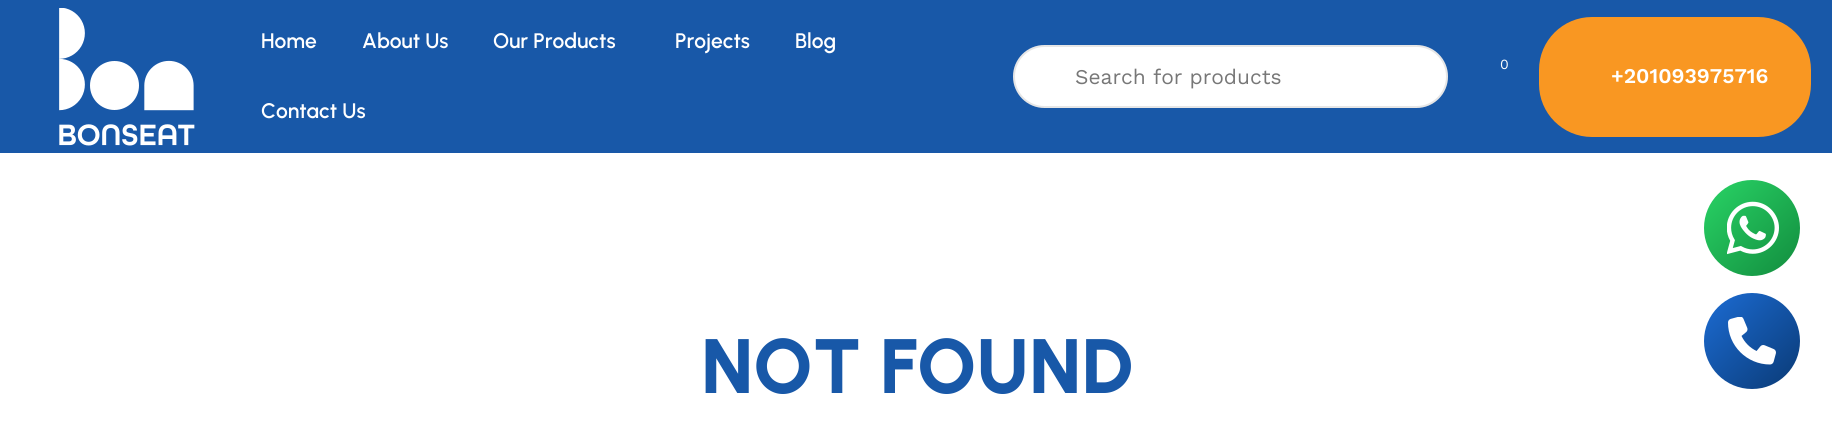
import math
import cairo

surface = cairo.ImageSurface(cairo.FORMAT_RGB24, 1832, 425)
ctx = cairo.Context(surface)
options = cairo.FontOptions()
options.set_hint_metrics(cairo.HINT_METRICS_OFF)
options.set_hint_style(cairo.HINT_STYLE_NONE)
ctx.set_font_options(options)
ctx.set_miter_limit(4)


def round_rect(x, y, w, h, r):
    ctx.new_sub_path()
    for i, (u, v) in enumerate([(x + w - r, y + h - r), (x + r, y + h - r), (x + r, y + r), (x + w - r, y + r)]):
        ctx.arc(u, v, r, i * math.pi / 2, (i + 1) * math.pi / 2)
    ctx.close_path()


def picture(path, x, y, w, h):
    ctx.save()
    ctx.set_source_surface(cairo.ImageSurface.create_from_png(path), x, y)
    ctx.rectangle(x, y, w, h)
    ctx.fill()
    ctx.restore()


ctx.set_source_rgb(1, 1, 1)
ctx.paint()
ctx.set_source_rgb(0.094, 0.345, 0.659)
ctx.rectangle(0, 0, 1832, 153)
ctx.fill()
picture("img1.png", 59, 8, 136, 138)
ctx.select_font_face("Urbanist SemiBold")
ctx.set_font_size(21)
ctx.set_source_rgb(1, 1, 1)
ctx.move_to(261, 48)
ctx.show_text("Home")
ctx.move_to(362, 48)
ctx.show_text("About Us")
ctx.move_to(493, 48)
ctx.show_text("Our Products")
ctx.move_to(675, 48)
ctx.show_text("Projects")
ctx.move_to(795, 48)
ctx.show_text("Blog")
ctx.move_to(261, 118)
ctx.show_text("Contact Us")
ctx.select_font_face("Work Sans")
ctx.set_font_size(14)
ctx.move_to(1500, 69)
ctx.show_text("0")
round_rect(1013, 45, 435, 63, 31.5)
ctx.fill()
round_rect(1014, 46, 433, 61, 30.5)
ctx.set_source_rgba(0, 0, 0, 0.1)
ctx.stroke()
ctx.set_font_size(21)
ctx.set_source_rgb(0.467, 0.467, 0.467)
ctx.move_to(1075, 84)
ctx.show_text("Search for products")
ctx.set_source_rgb(0.973, 0.592, 0.133)
round_rect(1539, 17, 272, 120, 53)
ctx.fill()
ctx.select_font_face("Work Sans SemiBold")
ctx.set_source_rgb(1, 1, 1)
ctx.move_to(1611, 83)
ctx.show_text("+201093975716")
ctx.select_font_face("Urbanist ExtraBold")
ctx.set_font_size(77)
ctx.set_source_rgb(0.094, 0.345, 0.659)
ctx.move_to(701, 393)
ctx.show_text("NOT FOUND")
gradient = cairo.LinearGradient(1704, 180, 1800, 276)
gradient.add_color_stop_rgba(0, 0.161, 0.831, 0.4, 1)
gradient.add_color_stop_rgba(1, 0.071, 0.549, 0.243, 1)
ctx.set_source(gradient)
ctx.new_path()
ctx.arc(1752, 228, 48, 0, 2 * math.pi)
ctx.fill()
picture("img2.png", 1727, 201, 52, 54)
gradient = cairo.LinearGradient(1704, 293, 1800, 389)
gradient.add_color_stop_rgba(0, 0.11, 0.424, 0.831, 1)
gradient.add_color_stop_rgba(1, 0.039, 0.227, 0.459, 1)
ctx.set_source(gradient)
ctx.arc(1752, 341, 48, 0, 2 * math.pi)
ctx.fill()
picture("img3.png", 1728, 317, 48, 48)
surface.write_to_png("page.png")
